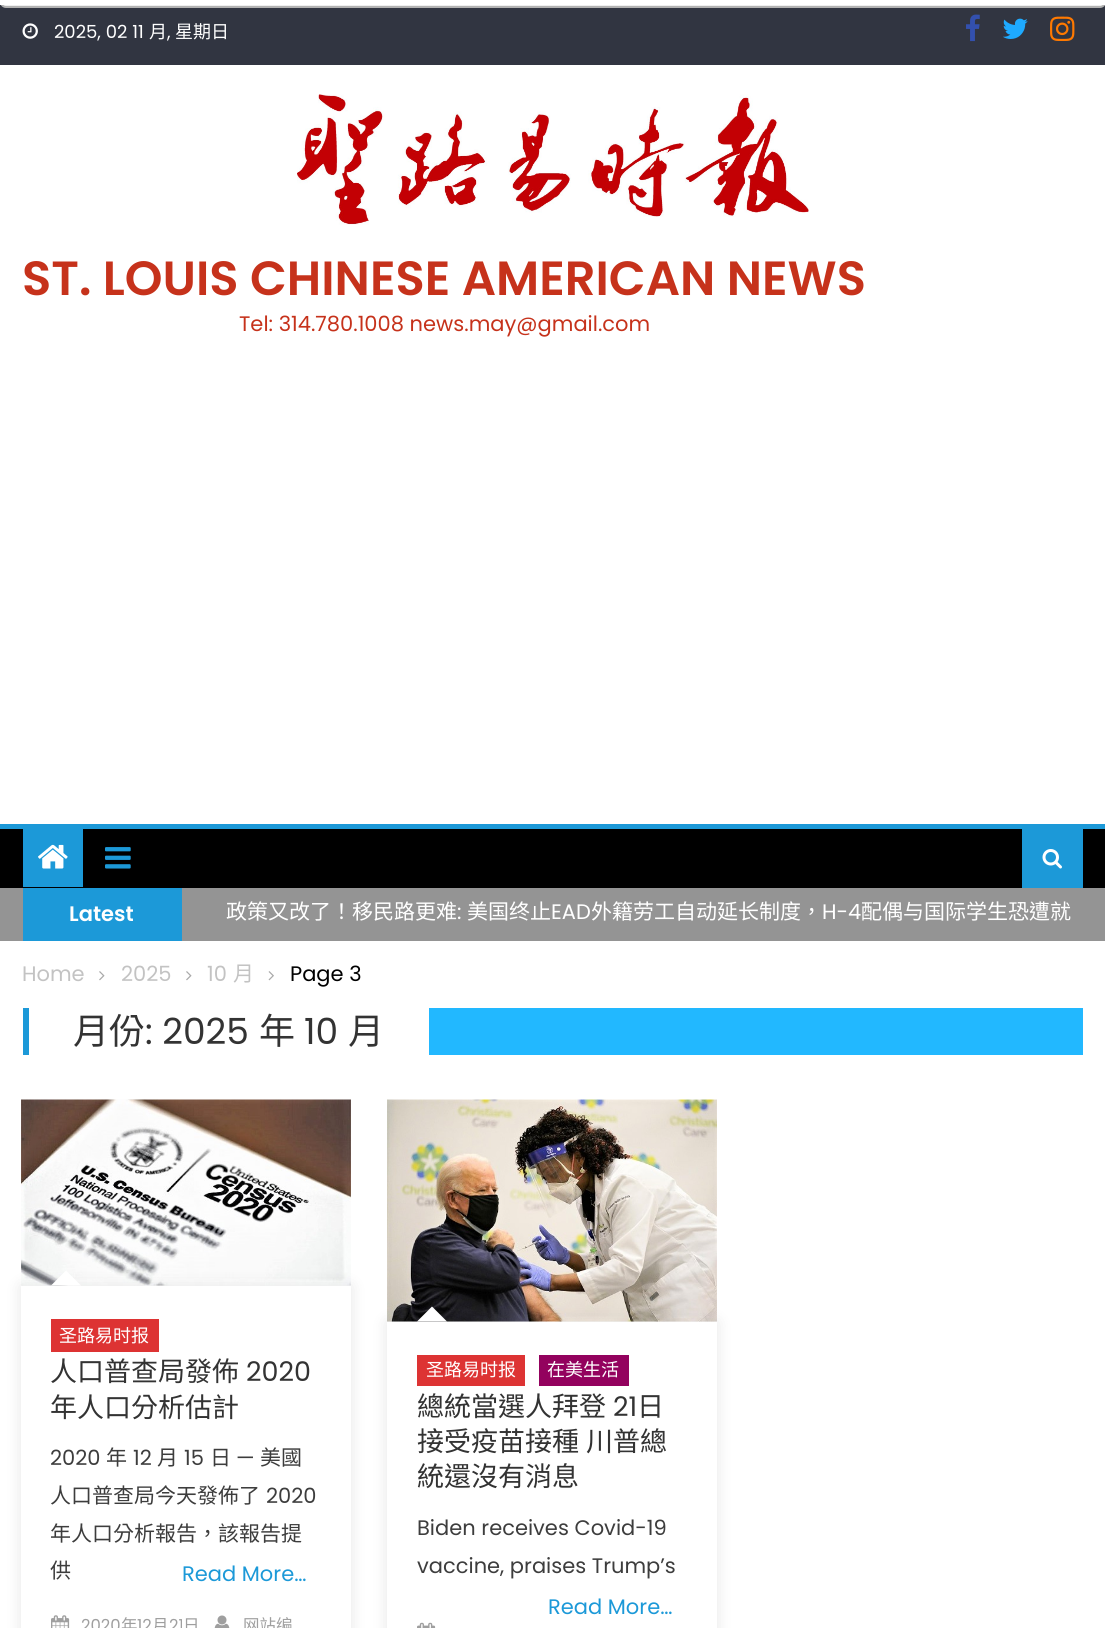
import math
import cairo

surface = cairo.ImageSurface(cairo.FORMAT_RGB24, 1105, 1628)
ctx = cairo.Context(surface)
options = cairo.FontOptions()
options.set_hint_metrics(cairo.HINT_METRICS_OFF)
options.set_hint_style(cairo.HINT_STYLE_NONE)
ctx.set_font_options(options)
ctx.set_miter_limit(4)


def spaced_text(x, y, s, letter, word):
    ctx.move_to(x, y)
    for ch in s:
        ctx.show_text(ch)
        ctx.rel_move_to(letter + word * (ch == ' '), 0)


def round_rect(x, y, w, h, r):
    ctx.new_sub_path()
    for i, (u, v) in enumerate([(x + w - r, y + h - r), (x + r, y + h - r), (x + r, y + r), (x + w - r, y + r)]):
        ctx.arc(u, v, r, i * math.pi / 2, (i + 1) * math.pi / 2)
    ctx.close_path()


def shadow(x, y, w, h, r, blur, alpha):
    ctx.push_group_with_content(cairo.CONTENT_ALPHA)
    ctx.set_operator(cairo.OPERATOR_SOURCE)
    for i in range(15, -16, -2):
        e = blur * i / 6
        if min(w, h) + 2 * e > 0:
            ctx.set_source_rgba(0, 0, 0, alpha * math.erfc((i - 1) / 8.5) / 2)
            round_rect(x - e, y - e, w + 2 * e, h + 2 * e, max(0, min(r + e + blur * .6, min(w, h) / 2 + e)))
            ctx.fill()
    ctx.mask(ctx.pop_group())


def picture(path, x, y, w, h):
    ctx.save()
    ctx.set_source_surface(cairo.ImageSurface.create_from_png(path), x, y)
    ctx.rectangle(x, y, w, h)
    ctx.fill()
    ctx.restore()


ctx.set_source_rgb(1, 1, 1)
ctx.paint()
ctx.set_source_rgb(0.192, 0.208, 0.255)
ctx.rectangle(0, 5, 1105, 60)
ctx.fill()
ctx.set_source_rgb(0.937, 0.937, 0.937)
round_rect(1, -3, 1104, 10, 5)
ctx.fill_preserve()
ctx.set_source_rgb(0.698, 0.698, 0.698)
ctx.stroke()
ctx.set_source_rgb(1, 1, 1)
ctx.rectangle(0, 0, 1105, 5)
ctx.fill()
picture("img1.png", 22, 23, 16, 16)
ctx.select_font_face("Poppins")
ctx.set_font_size(18)
ctx.move_to(54, 38)
ctx.show_text("2025, 02 11")
ctx.select_font_face("Noto Sans CJK TC")
ctx.move_to(149, 38)
ctx.show_text("月")
ctx.select_font_face("Poppins")
ctx.move_to(167, 38)
ctx.show_text(",")
ctx.select_font_face("Noto Sans CJK TC")
ctx.move_to(175, 38)
ctx.show_text("星期日")
picture("img2.png", 966, 14, 14, 28)
picture("img3.png", 1003, 18, 25, 21)
picture("img4.png", 1050, 16, 25, 25)
picture("img5.png", 297, 94, 512, 131)
ctx.select_font_face("Poppins SemiBold")
ctx.set_font_size(48)
ctx.set_source_rgb(0.776, 0.196, 0.106)
ctx.move_to(22, 295)
ctx.show_text("ST. LOUIS CHINESE AMERICAN NEWS")
ctx.select_font_face("Poppins")
ctx.set_font_size(21)
ctx.move_to(239, 331)
ctx.show_text("Tel: 314.780.1008 news.may@gmail.com")
ctx.set_source_rgb(0, 0, 0)
ctx.rectangle(0, 829, 1105, 59)
ctx.fill()
ctx.set_source_rgb(0.11, 0.6, 0.847)
ctx.rectangle(0, 824, 1105, 5)
ctx.fill()
ctx.rectangle(23, 829, 60, 58)
ctx.fill()
picture("img6.png", 38, 844, 30, 25)
picture("img7.png", 105, 847, 26, 22)
ctx.rectangle(1022, 829, 61, 59)
ctx.fill()
picture("img8.png", 1042, 849, 20, 20)
ctx.set_source_rgb(0.58, 0.58, 0.58)
ctx.rectangle(0, 888, 1105, 53)
ctx.fill()
ctx.set_source_rgb(0.11, 0.6, 0.847)
ctx.rectangle(23, 888, 159, 53)
ctx.fill()
ctx.select_font_face("Poppins SemiBold")
ctx.set_source_rgb(1, 1, 1)
ctx.move_to(69, 921)
ctx.show_text("Latest")
ctx.select_font_face("Noto Sans CJK TC")
ctx.move_to(226, 919)
ctx.show_text("政策又改了！移民路更难")
ctx.select_font_face("Poppins")
ctx.move_to(457, 919)
ctx.show_text(":")
ctx.select_font_face("Noto Sans CJK TC")
ctx.move_to(467, 919)
ctx.show_text("美国终止")
ctx.select_font_face("Poppins")
ctx.move_to(551, 919)
ctx.show_text("EAD")
ctx.select_font_face("Noto Sans CJK TC")
ctx.move_to(591, 919)
ctx.show_text("外籍劳工自动延长制度，")
ctx.select_font_face("Poppins")
ctx.move_to(822, 919)
ctx.show_text("H-4")
ctx.select_font_face("Noto Sans CJK TC")
ctx.move_to(861, 919)
ctx.show_text("配偶与国际学生恐遭就")
ctx.select_font_face("Poppins")
ctx.set_source_rgb(0.765, 0.765, 0.765)
ctx.move_to(22, 981)
ctx.show_text("Home")
picture("img9.png", 99, 971, 6, 10)
ctx.move_to(121, 981)
ctx.show_text("2025")
picture("img9.png", 186, 971, 6, 10)
ctx.move_to(207, 981)
ctx.show_text("10")
ctx.select_font_face("Noto Sans CJK TC")
ctx.move_to(233, 981)
ctx.show_text("月")
picture("img10.png", 268, 971, 6, 10)
ctx.select_font_face("Poppins")
ctx.set_source_rgb(0, 0, 0)
ctx.move_to(290, 981)
ctx.show_text("Page 3")
ctx.set_source_rgb(0.133, 0.722, 1)
ctx.rectangle(429, 1008, 654, 47)
ctx.fill()
ctx.set_source_rgb(0.11, 0.6, 0.847)
ctx.rectangle(23, 1008, 6, 47)
ctx.fill()
ctx.select_font_face("Noto Sans CJK TC")
ctx.set_font_size(36)
ctx.set_source_rgb(0.2, 0.2, 0.2)
ctx.move_to(73, 1044)
ctx.show_text("月份")
ctx.select_font_face("Poppins")
ctx.move_to(145, 1044)
ctx.show_text(": 2025")
ctx.select_font_face("Noto Sans CJK TC")
ctx.move_to(259, 1044)
ctx.show_text("年")
ctx.select_font_face("Poppins")
ctx.move_to(304, 1044)
ctx.show_text("10")
ctx.select_font_face("Noto Sans CJK TC")
ctx.move_to(348, 1044)
ctx.show_text("月")
picture("img11.png", 21, 1099, 330, 187)
ctx.save()
ctx.set_fill_rule(cairo.FILL_RULE_EVEN_ODD)
ctx.new_path()
ctx.move_to(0, 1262)
ctx.line_to(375, 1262)
ctx.line_to(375, 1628)
ctx.line_to(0, 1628)
ctx.close_path()
ctx.move_to(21, 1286)
ctx.line_to(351, 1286)
ctx.line_to(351, 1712)
ctx.line_to(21, 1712)
ctx.close_path()
ctx.clip()
ctx.set_source_rgb(0, 0, 0)
shadow(21, 1286, 330, 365, 0, 7.5, 0.1)
ctx.restore()
ctx.set_source_rgb(1, 1, 1)
ctx.new_path()
ctx.move_to(81, 1285.5)
ctx.line_to(51, 1285.5)
ctx.line_to(66, 1270.5)
ctx.close_path()
ctx.fill()
ctx.set_source_rgb(0.867, 0.2, 0.2)
ctx.rectangle(51, 1319, 108, 33)
ctx.fill()
ctx.set_font_size(18)
ctx.set_source_rgb(1, 1, 1)
ctx.move_to(59, 1342)
ctx.show_text("圣路易时报")
ctx.set_font_size(27)
ctx.set_source_rgb(0.2, 0.2, 0.2)
ctx.move_to(50, 1381)
ctx.show_text("人口普查局發佈")
ctx.select_font_face("Poppins")
ctx.move_to(246, 1381)
ctx.show_text("2020")
ctx.select_font_face("Noto Sans CJK TC")
ctx.move_to(50, 1417)
ctx.show_text("年人口分析估計")
ctx.select_font_face("Poppins")
ctx.set_font_size(21)
ctx.set_source_rgb(0.239, 0.239, 0.239)
ctx.move_to(50, 1465)
ctx.show_text("2020")
ctx.select_font_face("Noto Sans CJK TC")
ctx.move_to(106, 1465)
ctx.show_text("年")
ctx.select_font_face("Poppins")
ctx.move_to(133, 1465)
ctx.show_text("12")
ctx.select_font_face("Noto Sans CJK TC")
ctx.move_to(157, 1465)
ctx.show_text("月")
ctx.select_font_face("Poppins")
ctx.move_to(184, 1465)
ctx.show_text("15")
ctx.select_font_face("Noto Sans CJK TC")
ctx.move_to(210, 1465)
ctx.show_text("日")
ctx.select_font_face("Poppins")
ctx.move_to(236, 1465)
ctx.show_text("—")
ctx.select_font_face("Noto Sans CJK TC")
ctx.move_to(260, 1465)
ctx.show_text("美國")
ctx.move_to(50, 1503)
ctx.show_text("人口普查局今天發佈了")
ctx.select_font_face("Poppins")
ctx.move_to(266, 1503)
ctx.show_text("2020")
ctx.select_font_face("Noto Sans CJK TC")
ctx.move_to(50, 1541)
ctx.show_text("年人口分析報告，該報告提")
ctx.move_to(50, 1578)
ctx.show_text("供")
ctx.select_font_face("Poppins")
ctx.set_source_rgb(0.11, 0.6, 0.847)
ctx.move_to(182, 1581)
ctx.show_text("Read More…")
picture("img12.png", 51, 1615, 19, 13)
ctx.set_font_size(16.5)
ctx.set_source_rgb(0.624, 0.624, 0.624)
ctx.move_to(81, 1631)
ctx.show_text("2020")
ctx.select_font_face("Noto Sans CJK TC")
ctx.move_to(121, 1631)
ctx.show_text("年")
ctx.select_font_face("Poppins")
ctx.move_to(137, 1631)
ctx.show_text("12")
ctx.select_font_face("Noto Sans CJK TC")
ctx.move_to(152, 1631)
ctx.show_text("月")
ctx.select_font_face("Poppins")
ctx.move_to(169, 1631)
ctx.show_text("21")
ctx.select_font_face("Noto Sans CJK TC")
ctx.move_to(183, 1631)
ctx.show_text("日")
picture("img13.png", 214, 1615, 16, 13)
ctx.move_to(243, 1631)
ctx.show_text("网站编")
picture("img14.png", 387, 1099, 330, 223)
ctx.save()
ctx.set_fill_rule(cairo.FILL_RULE_EVEN_ODD)
ctx.new_path()
ctx.move_to(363, 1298)
ctx.line_to(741, 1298)
ctx.line_to(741, 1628)
ctx.line_to(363, 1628)
ctx.close_path()
ctx.move_to(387, 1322)
ctx.line_to(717, 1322)
ctx.line_to(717, 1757)
ctx.line_to(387, 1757)
ctx.close_path()
ctx.clip()
ctx.set_source_rgb(0, 0, 0)
shadow(387, 1322, 330, 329, 0, 7.5, 0.1)
ctx.restore()
ctx.set_source_rgb(1, 1, 1)
ctx.new_path()
ctx.move_to(447, 1321.5)
ctx.line_to(417, 1321.5)
ctx.line_to(432, 1306.5)
ctx.close_path()
ctx.fill()
ctx.set_source_rgb(0.867, 0.2, 0.2)
ctx.rectangle(417, 1355, 108, 31)
ctx.fill()
ctx.set_font_size(18)
ctx.set_source_rgb(1, 1, 1)
ctx.move_to(426, 1376)
ctx.show_text("圣路易时报")
ctx.set_source_rgb(0.576, 0.008, 0.369)
ctx.rectangle(539, 1355, 90, 31)
ctx.fill()
ctx.set_source_rgb(1, 1, 1)
ctx.move_to(547, 1376)
ctx.show_text("在美生活")
ctx.set_font_size(27)
ctx.set_source_rgb(0.2, 0.2, 0.2)
ctx.move_to(417, 1416)
ctx.show_text("總統當選人拜登")
ctx.select_font_face("Poppins")
ctx.move_to(613, 1416)
ctx.show_text("21")
ctx.select_font_face("Noto Sans CJK TC")
ctx.move_to(637, 1416)
ctx.show_text("日")
spaced_text(417, 1451, "接受疫苗接種 川普總", 0, 1)
ctx.move_to(417, 1486)
ctx.show_text("統還沒有消息")
ctx.select_font_face("Poppins")
ctx.set_font_size(21)
ctx.set_source_rgb(0.239, 0.239, 0.239)
ctx.move_to(417, 1535)
ctx.show_text("Biden receives Covid-19")
ctx.move_to(417, 1573)
ctx.show_text("vaccine, praises Trump’s")
ctx.set_source_rgb(0.11, 0.6, 0.847)
ctx.move_to(548, 1614)
ctx.show_text("Read More…")
picture("img15.png", 417, 1622, 19, 6)
surface.write_to_png("page.png")
